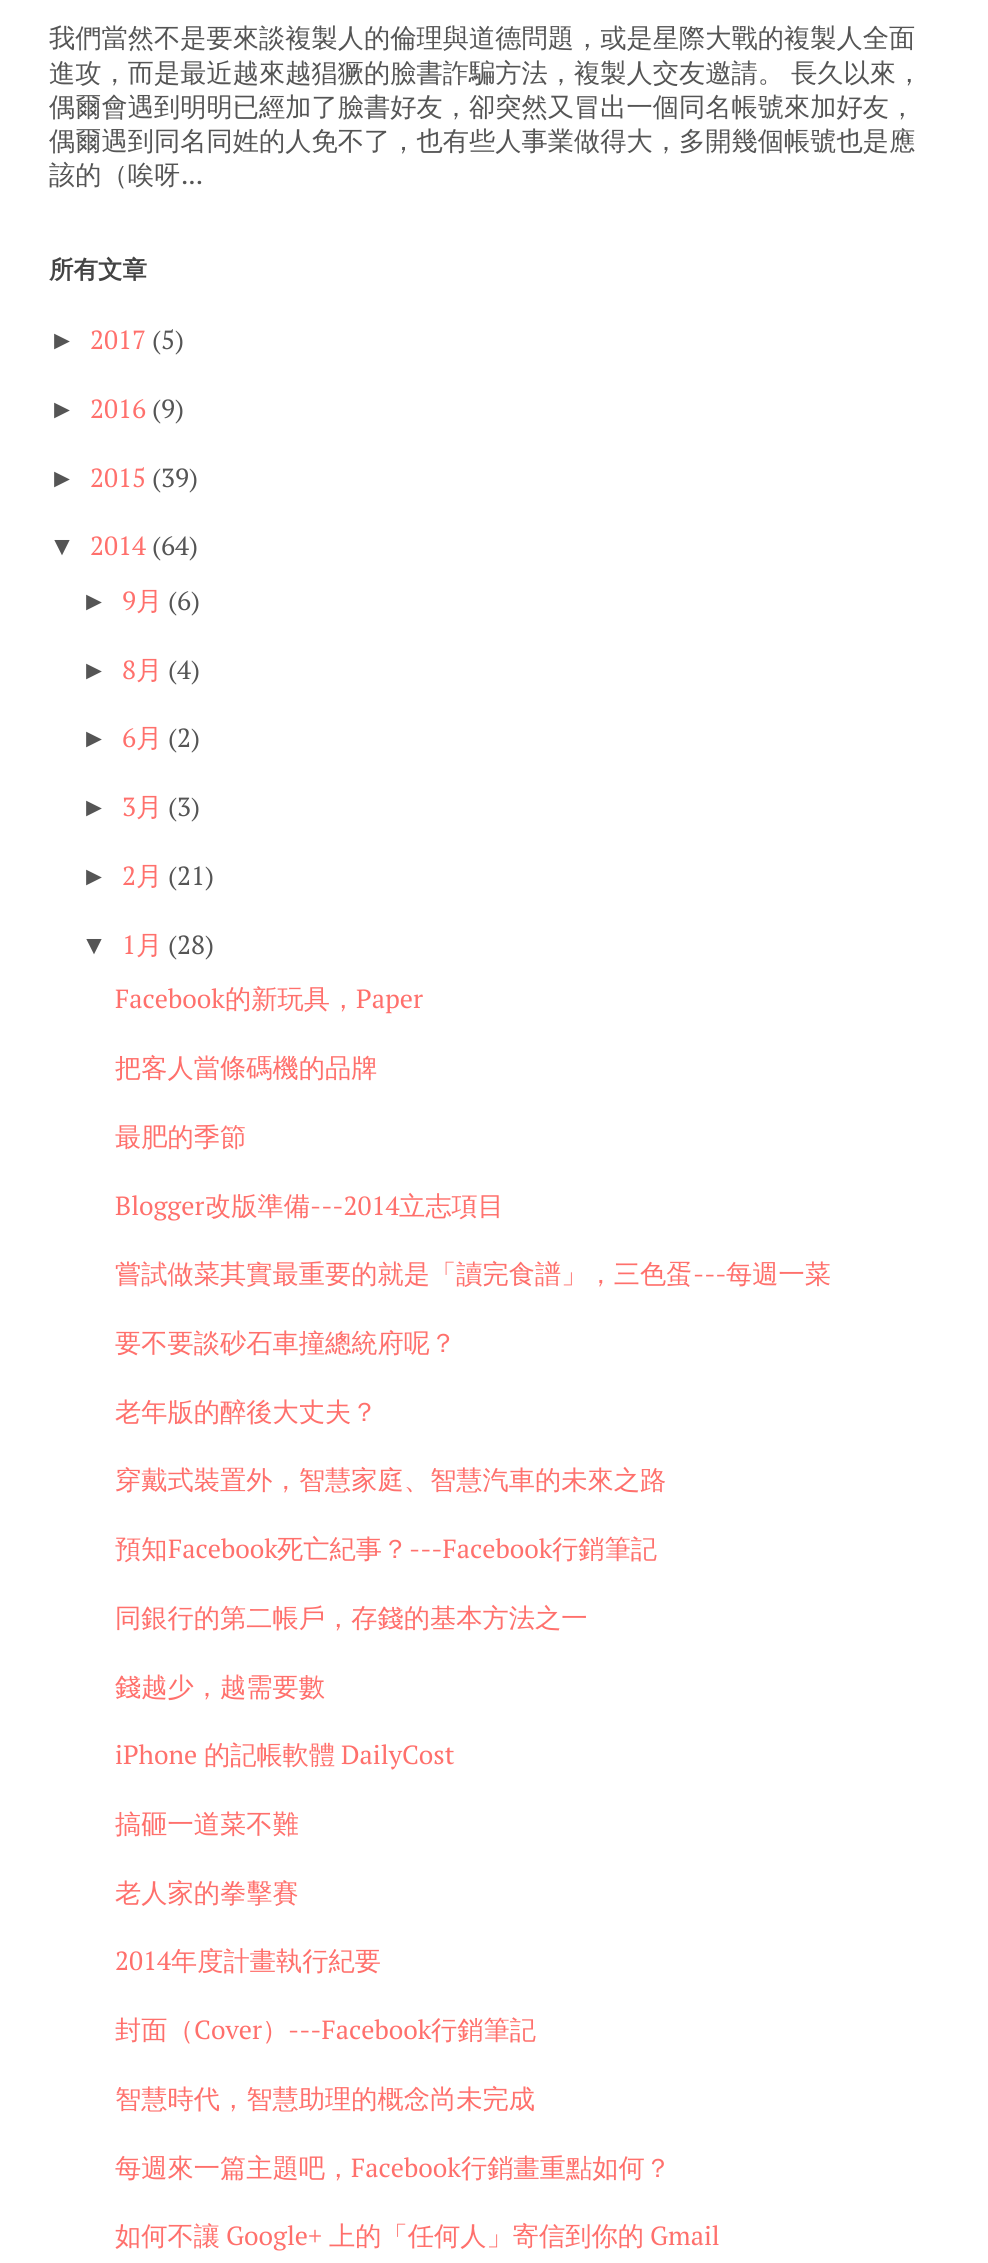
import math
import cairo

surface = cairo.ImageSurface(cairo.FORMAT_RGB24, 988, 2263)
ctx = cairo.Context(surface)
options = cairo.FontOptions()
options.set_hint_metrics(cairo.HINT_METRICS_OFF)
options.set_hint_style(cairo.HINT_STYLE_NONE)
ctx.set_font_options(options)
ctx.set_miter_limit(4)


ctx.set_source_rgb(1, 1, 1)
ctx.paint()
ctx.select_font_face("WenQuanYi Zen Hei Medium")
ctx.set_font_size(26.25)
ctx.set_source_rgb(0.333, 0.333, 0.333)
ctx.move_to(49, 47)
ctx.show_text("我們當然不是要來談複製人的倫理與道德問題，或是星際大戰的複製人全面")
ctx.move_to(49, 82)
ctx.show_text("進攻，而是最近越來越猖獗的臉書詐騙方法，複製人交友邀請。")
ctx.move_to(791, 82)
ctx.show_text("長久以來，")
ctx.move_to(49, 116)
ctx.show_text("偶爾會遇到明明已經加了臉書好友，卻突然又冒出一個同名帳號來加好友，")
ctx.move_to(49, 150)
ctx.show_text("偶爾遇到同名同姓的人免不了，也有些人事業做得大，多開幾個帳號也是應")
ctx.move_to(49, 184)
ctx.show_text("該的（唉呀")
ctx.select_font_face("PT Serif")
ctx.move_to(181, 184)
ctx.show_text("...")
ctx.select_font_face("WenQuanYi Zen Hei", cairo.FONT_SLANT_NORMAL, cairo.FONT_WEIGHT_BOLD)
ctx.set_font_size(24.5)
ctx.set_source_rgb(0.267, 0.267, 0.267)
ctx.move_to(49, 278)
ctx.show_text("所有文章")
ctx.select_font_face("Liberation Sans")
ctx.set_font_size(26.25)
ctx.set_source_rgb(0.333, 0.333, 0.333)
ctx.move_to(49, 349)
ctx.show_text("►")
ctx.select_font_face("PT Serif")
ctx.set_source_rgb(1, 0.439, 0.424)
ctx.move_to(90, 349)
ctx.show_text("2017")
ctx.set_source_rgb(0.333, 0.333, 0.333)
ctx.move_to(152, 349)
ctx.show_text("(5)")
ctx.select_font_face("Liberation Sans")
ctx.move_to(49, 418)
ctx.show_text("►")
ctx.select_font_face("PT Serif")
ctx.set_source_rgb(1, 0.439, 0.424)
ctx.move_to(90, 418)
ctx.show_text("2016")
ctx.set_source_rgb(0.333, 0.333, 0.333)
ctx.move_to(152, 418)
ctx.show_text("(9)")
ctx.select_font_face("Liberation Sans")
ctx.move_to(49, 487)
ctx.show_text("►")
ctx.select_font_face("PT Serif")
ctx.set_source_rgb(1, 0.439, 0.424)
ctx.move_to(90, 487)
ctx.show_text("2015")
ctx.set_source_rgb(0.333, 0.333, 0.333)
ctx.move_to(152, 487)
ctx.show_text("(39)")
ctx.select_font_face("Liberation Sans")
ctx.move_to(49, 555)
ctx.show_text("▼")
ctx.select_font_face("PT Serif")
ctx.set_source_rgb(1, 0.439, 0.424)
ctx.move_to(90, 555)
ctx.show_text("2014")
ctx.set_source_rgb(0.333, 0.333, 0.333)
ctx.move_to(152, 555)
ctx.show_text("(64)")
ctx.select_font_face("Liberation Sans")
ctx.move_to(81, 610)
ctx.show_text("►")
ctx.select_font_face("PT Serif")
ctx.set_source_rgb(1, 0.439, 0.424)
ctx.move_to(122, 610)
ctx.show_text("9")
ctx.select_font_face("WenQuanYi Zen Hei Medium")
ctx.move_to(136, 610)
ctx.show_text("月")
ctx.select_font_face("PT Serif")
ctx.set_source_rgb(0.333, 0.333, 0.333)
ctx.move_to(168, 610)
ctx.show_text("(6)")
ctx.select_font_face("Liberation Sans")
ctx.move_to(81, 679)
ctx.show_text("►")
ctx.select_font_face("PT Serif")
ctx.set_source_rgb(1, 0.439, 0.424)
ctx.move_to(122, 679)
ctx.show_text("8")
ctx.select_font_face("WenQuanYi Zen Hei Medium")
ctx.move_to(136, 679)
ctx.show_text("月")
ctx.select_font_face("PT Serif")
ctx.set_source_rgb(0.333, 0.333, 0.333)
ctx.move_to(168, 679)
ctx.show_text("(4)")
ctx.select_font_face("Liberation Sans")
ctx.move_to(81, 747)
ctx.show_text("►")
ctx.select_font_face("PT Serif")
ctx.set_source_rgb(1, 0.439, 0.424)
ctx.move_to(122, 747)
ctx.show_text("6")
ctx.select_font_face("WenQuanYi Zen Hei Medium")
ctx.move_to(136, 747)
ctx.show_text("月")
ctx.select_font_face("PT Serif")
ctx.set_source_rgb(0.333, 0.333, 0.333)
ctx.move_to(168, 747)
ctx.show_text("(2)")
ctx.select_font_face("Liberation Sans")
ctx.move_to(81, 816)
ctx.show_text("►")
ctx.select_font_face("PT Serif")
ctx.set_source_rgb(1, 0.439, 0.424)
ctx.move_to(122, 816)
ctx.show_text("3")
ctx.select_font_face("WenQuanYi Zen Hei Medium")
ctx.move_to(136, 816)
ctx.show_text("月")
ctx.select_font_face("PT Serif")
ctx.set_source_rgb(0.333, 0.333, 0.333)
ctx.move_to(168, 816)
ctx.show_text("(3)")
ctx.select_font_face("Liberation Sans")
ctx.move_to(81, 885)
ctx.show_text("►")
ctx.select_font_face("PT Serif")
ctx.set_source_rgb(1, 0.439, 0.424)
ctx.move_to(122, 885)
ctx.show_text("2")
ctx.select_font_face("WenQuanYi Zen Hei Medium")
ctx.move_to(136, 885)
ctx.show_text("月")
ctx.select_font_face("PT Serif")
ctx.set_source_rgb(0.333, 0.333, 0.333)
ctx.move_to(168, 885)
ctx.show_text("(21)")
ctx.select_font_face("Liberation Sans")
ctx.move_to(81, 954)
ctx.show_text("▼")
ctx.select_font_face("PT Serif")
ctx.set_source_rgb(1, 0.439, 0.424)
ctx.move_to(122, 954)
ctx.show_text("1")
ctx.select_font_face("WenQuanYi Zen Hei Medium")
ctx.move_to(136, 954)
ctx.show_text("月")
ctx.select_font_face("PT Serif")
ctx.set_source_rgb(0.333, 0.333, 0.333)
ctx.move_to(168, 954)
ctx.show_text("(28)")
ctx.set_source_rgb(1, 0.439, 0.424)
ctx.move_to(115, 1008)
ctx.show_text("Facebook")
ctx.select_font_face("WenQuanYi Zen Hei Medium")
ctx.move_to(225, 1008)
ctx.show_text("的新玩具，")
ctx.select_font_face("PT Serif")
ctx.move_to(356, 1008)
ctx.show_text("Paper")
ctx.select_font_face("WenQuanYi Zen Hei Medium")
ctx.move_to(115, 1077)
ctx.show_text("把客人當條碼機的品牌")
ctx.move_to(115, 1146)
ctx.show_text("最肥的季節")
ctx.select_font_face("PT Serif")
ctx.move_to(115, 1215)
ctx.show_text("Blogger")
ctx.select_font_face("WenQuanYi Zen Hei Medium")
ctx.move_to(205, 1215)
ctx.show_text("改版準備")
ctx.select_font_face("PT Serif")
ctx.move_to(310, 1215)
ctx.show_text("---2014")
ctx.select_font_face("WenQuanYi Zen Hei Medium")
ctx.move_to(399, 1215)
ctx.show_text("立志項目")
ctx.move_to(115, 1283)
ctx.show_text("嘗試做菜其實最重要的就是「讀完食譜」，三色蛋")
ctx.select_font_face("PT Serif")
ctx.move_to(693, 1283)
ctx.show_text("---")
ctx.select_font_face("WenQuanYi Zen Hei Medium")
ctx.move_to(726, 1283)
ctx.show_text("每週一菜")
ctx.move_to(115, 1352)
ctx.show_text("要不要談砂石車撞總統府呢？")
ctx.move_to(115, 1421)
ctx.show_text("老年版的醉後大丈夫？")
ctx.move_to(115, 1489)
ctx.show_text("穿戴式裝置外，智慧家庭、智慧汽車的未來之路")
ctx.move_to(115, 1558)
ctx.show_text("預知")
ctx.select_font_face("PT Serif")
ctx.move_to(168, 1558)
ctx.show_text("Facebook")
ctx.select_font_face("WenQuanYi Zen Hei Medium")
ctx.move_to(277, 1558)
ctx.show_text("死亡紀事？")
ctx.select_font_face("PT Serif")
ctx.move_to(409, 1558)
ctx.show_text("---Facebook")
ctx.select_font_face("WenQuanYi Zen Hei Medium")
ctx.move_to(552, 1558)
ctx.show_text("行銷筆記")
ctx.move_to(115, 1627)
ctx.show_text("同銀行的第二帳戶，存錢的基本方法之一")
ctx.move_to(115, 1696)
ctx.show_text("錢越少，越需要數")
ctx.select_font_face("PT Serif")
ctx.move_to(115, 1764)
ctx.show_text("iPhone")
ctx.select_font_face("WenQuanYi Zen Hei Medium")
ctx.move_to(204, 1764)
ctx.show_text("的記帳軟體")
ctx.select_font_face("PT Serif")
ctx.move_to(341, 1764)
ctx.show_text("DailyCost")
ctx.select_font_face("WenQuanYi Zen Hei Medium")
ctx.move_to(115, 1833)
ctx.show_text("搞砸一道菜不難")
ctx.move_to(115, 1902)
ctx.show_text("老人家的拳擊賽")
ctx.select_font_face("PT Serif")
ctx.move_to(115, 1970)
ctx.show_text("2014")
ctx.select_font_face("WenQuanYi Zen Hei Medium")
ctx.move_to(171, 1970)
ctx.show_text("年度計畫執行紀要")
ctx.move_to(115, 2039)
ctx.show_text("封面（")
ctx.select_font_face("PT Serif")
ctx.move_to(194, 2039)
ctx.show_text("Cover")
ctx.select_font_face("WenQuanYi Zen Hei Medium")
ctx.move_to(262, 2039)
ctx.show_text("）")
ctx.select_font_face("PT Serif")
ctx.move_to(288, 2039)
ctx.show_text("---Facebook")
ctx.select_font_face("WenQuanYi Zen Hei Medium")
ctx.move_to(431, 2039)
ctx.show_text("行銷筆記")
ctx.move_to(115, 2108)
ctx.show_text("智慧時代，智慧助理的概念尚未完成")
ctx.move_to(115, 2177)
ctx.show_text("每週來一篇主題吧，")
ctx.select_font_face("PT Serif")
ctx.move_to(351, 2177)
ctx.show_text("Facebook")
ctx.select_font_face("WenQuanYi Zen Hei Medium")
ctx.move_to(461, 2177)
ctx.show_text("行銷畫重點如何？")
ctx.move_to(115, 2245)
ctx.show_text("如何不讓")
ctx.select_font_face("PT Serif")
ctx.move_to(226, 2245)
ctx.show_text("Google+")
ctx.select_font_face("WenQuanYi Zen Hei Medium")
ctx.move_to(329, 2245)
ctx.show_text("上的「任何人」寄信到你的")
ctx.select_font_face("PT Serif")
ctx.move_to(650, 2245)
ctx.show_text("Gmail")
surface.write_to_png("page.png")
